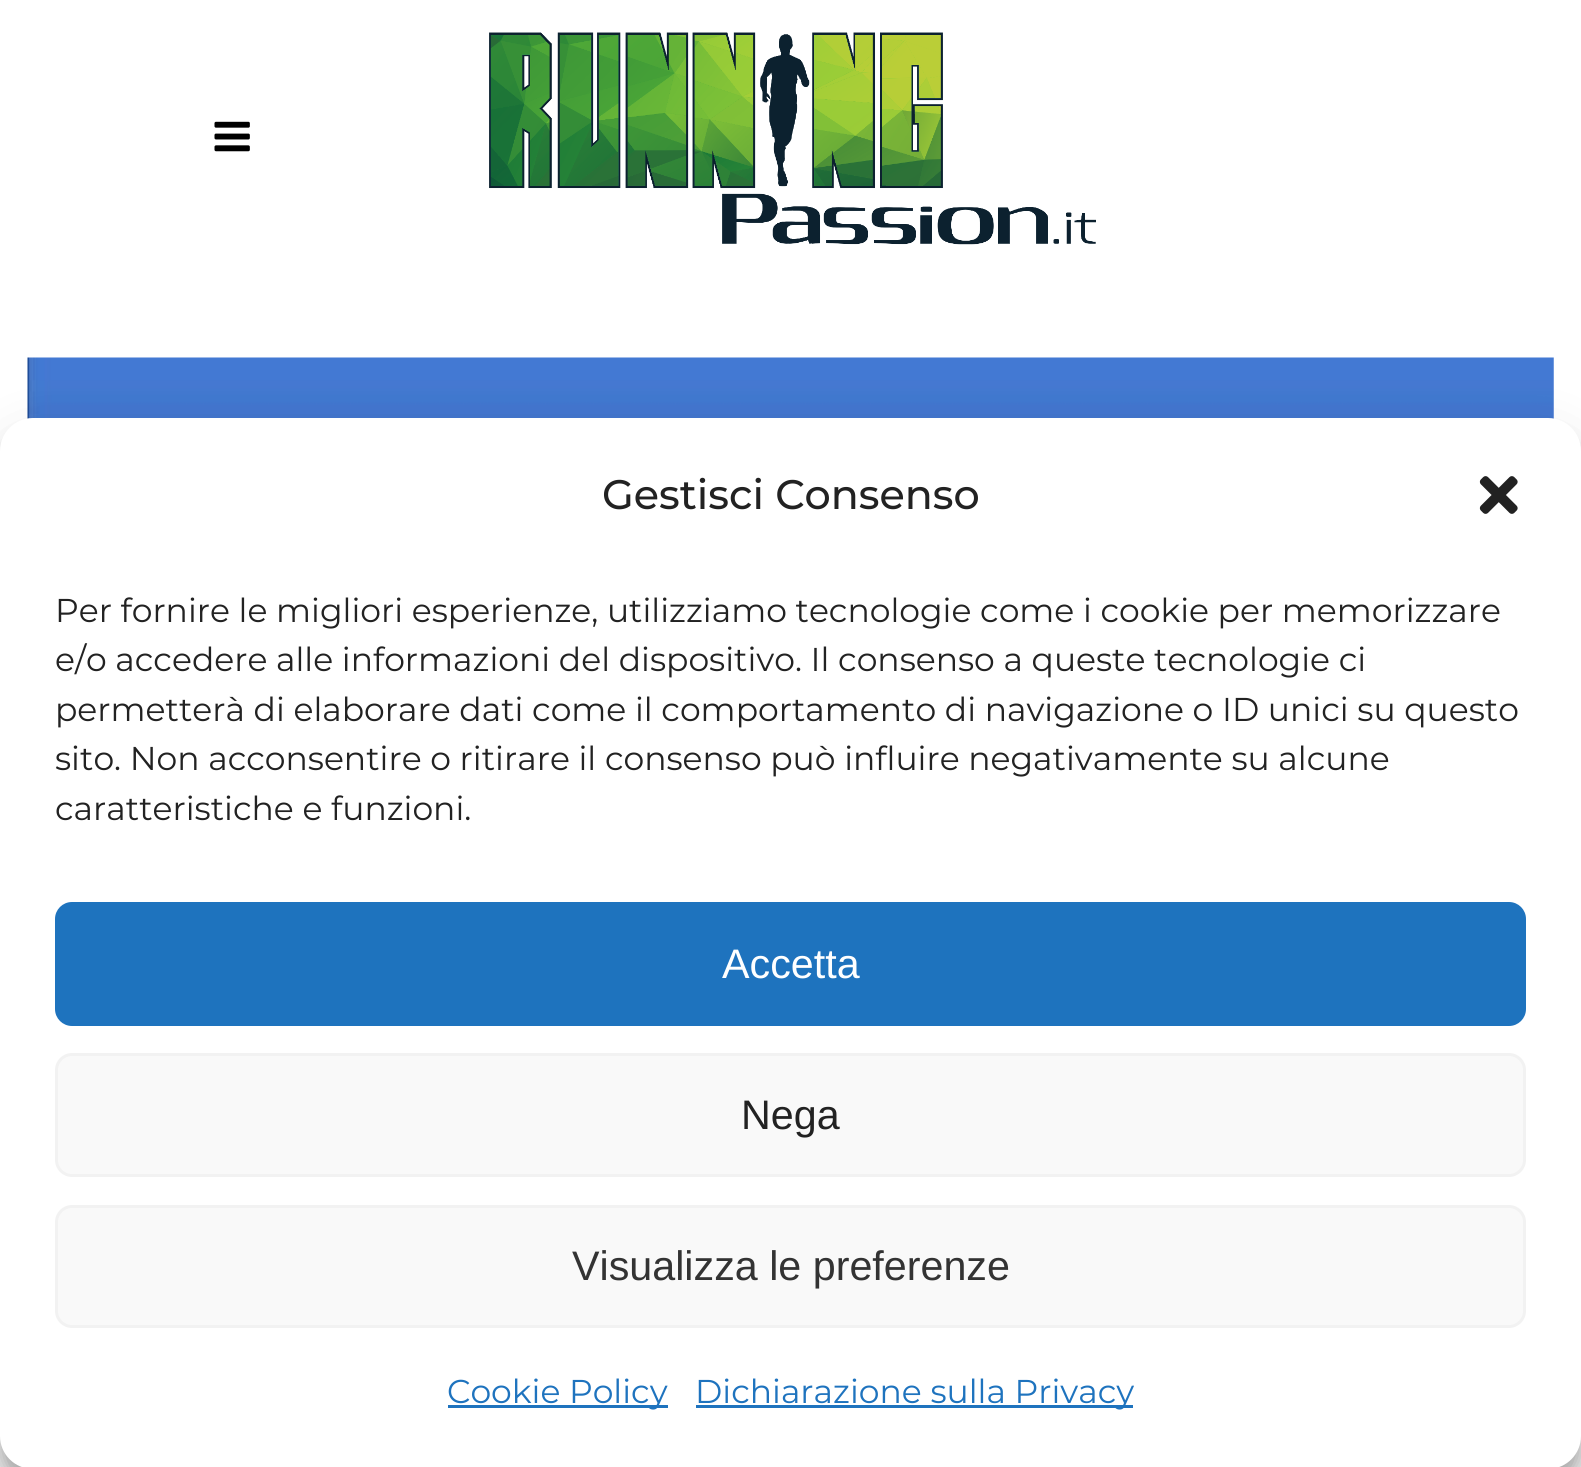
import math
import cairo

surface = cairo.ImageSurface(cairo.FORMAT_RGB24, 1581, 1467)
ctx = cairo.Context(surface)
options = cairo.FontOptions()
options.set_hint_metrics(cairo.HINT_METRICS_OFF)
options.set_hint_style(cairo.HINT_STYLE_NONE)
ctx.set_font_options(options)
ctx.set_miter_limit(4)


def round_rect(x, y, w, h, r):
    ctx.new_sub_path()
    for i, (u, v) in enumerate([(x + w - r, y + h - r), (x + r, y + h - r), (x + r, y + r), (x + w - r, y + r)]):
        ctx.arc(u, v, r, i * math.pi / 2, (i + 1) * math.pi / 2)
    ctx.close_path()


def shadow(x, y, w, h, r, blur, alpha):
    ctx.push_group_with_content(cairo.CONTENT_ALPHA)
    ctx.set_operator(cairo.OPERATOR_SOURCE)
    for i in range(15, -16, -2):
        e = blur * i / 6
        if min(w, h) + 2 * e > 0:
            ctx.set_source_rgba(0, 0, 0, alpha * math.erfc((i - 1) / 8.5) / 2)
            round_rect(x - e, y - e, w + 2 * e, h + 2 * e, max(0, min(r + e + blur * .6, min(w, h) / 2 + e)))
            ctx.fill()
    ctx.mask(ctx.pop_group())


def picture(path, x, y, w, h):
    ctx.save()
    ctx.set_source_surface(cairo.ImageSurface.create_from_png(path), x, y)
    ctx.rectangle(x, y, w, h)
    ctx.fill()
    ctx.restore()


ctx.set_source_rgb(1, 1, 1)
ctx.paint()
picture("img1.png", 214, 121, 36, 31)
picture("img2.png", 489, 32, 607, 213)
picture("img3.png", 27, 357, 1527, 62)
ctx.set_source_rgb(0, 0, 0)
shadow(0, 435, 1581, 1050, 33, 8, 0.23)
shadow(0, 446, 1581, 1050, 33, 27.5, 0.19)
ctx.set_source_rgb(1, 1, 1)
round_rect(0, 418, 1581, 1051, 33)
ctx.fill()
ctx.select_font_face("Montserrat Medium")
ctx.set_font_size(41.25)
ctx.set_source_rgb(0.133, 0.133, 0.133)
ctx.move_to(602, 509)
ctx.show_text("Gestisci Consenso")
picture("img4.png", 1479, 476, 39, 38)
ctx.select_font_face("Montserrat")
ctx.set_font_size(33)
ctx.move_to(55, 622)
ctx.show_text("Per fornire le migliori esperienze, utilizziamo tecnologie come i cookie per memorizzare")
ctx.move_to(55, 671)
ctx.show_text("e/o accedere alle informazioni del dispositivo. Il consenso a queste tecnologie ci")
ctx.move_to(55, 721)
ctx.show_text("permetterà di elaborare dati come il comportamento di navigazione o ID unici su questo")
ctx.move_to(55, 770)
ctx.show_text("sito. Non acconsentire o ritirare il consenso può influire negativamente su alcune")
ctx.move_to(55, 820)
ctx.show_text("caratteristiche e funzioni.")
ctx.set_source_rgb(0.118, 0.451, 0.745)
round_rect(56.5, 903.5, 1468, 121, 15.5)
ctx.fill_preserve()
ctx.set_line_width(3)
ctx.stroke()
ctx.select_font_face("Liberation Sans")
ctx.set_font_size(41.25)
ctx.set_source_rgb(1, 1, 1)
ctx.move_to(722, 978)
ctx.show_text("Accetta")
ctx.set_source_rgb(0.976, 0.976, 0.976)
round_rect(56.5, 1054.5, 1468, 121, 15.5)
ctx.fill_preserve()
ctx.set_source_rgb(0.949, 0.949, 0.949)
ctx.stroke()
ctx.set_source_rgb(0.133, 0.133, 0.133)
ctx.move_to(741, 1129)
ctx.show_text("Nega")
ctx.set_source_rgb(0.976, 0.976, 0.976)
round_rect(56.5, 1206.5, 1468, 120, 15.5)
ctx.fill_preserve()
ctx.set_source_rgb(0.949, 0.949, 0.949)
ctx.stroke()
ctx.set_source_rgb(0.2, 0.2, 0.2)
ctx.move_to(572, 1280)
ctx.show_text("Visualizza le preferenze")
ctx.set_source_rgb(0.118, 0.451, 0.745)
ctx.rectangle(448, 1405, 220, 3)
ctx.fill()
ctx.select_font_face("Montserrat")
ctx.set_font_size(33)
ctx.move_to(447, 1403)
ctx.show_text("Cookie Policy")
ctx.rectangle(696, 1405, 437, 3)
ctx.fill()
ctx.move_to(695, 1403)
ctx.show_text("Dichiarazione sulla Privacy")
surface.write_to_png("page.png")
